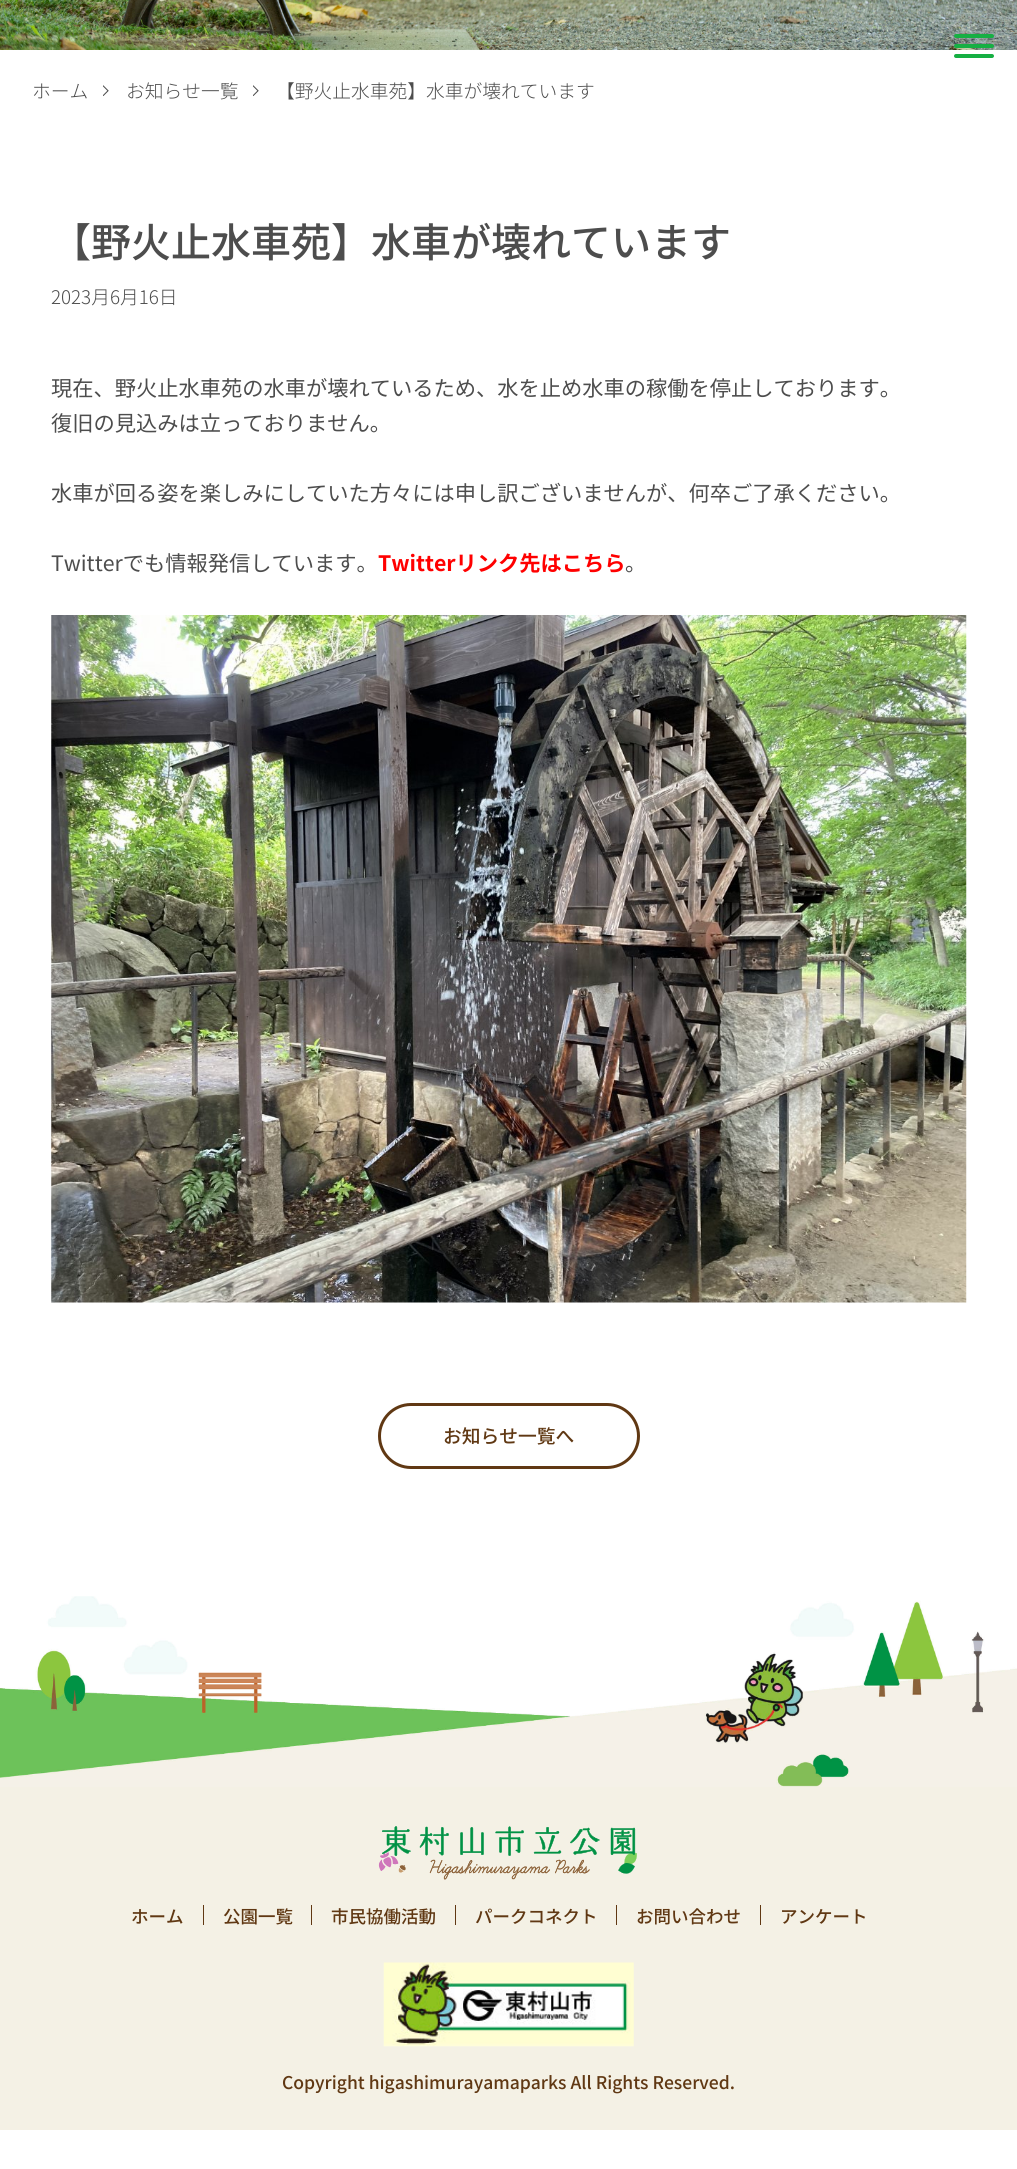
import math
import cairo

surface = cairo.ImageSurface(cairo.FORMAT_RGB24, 1017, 2169)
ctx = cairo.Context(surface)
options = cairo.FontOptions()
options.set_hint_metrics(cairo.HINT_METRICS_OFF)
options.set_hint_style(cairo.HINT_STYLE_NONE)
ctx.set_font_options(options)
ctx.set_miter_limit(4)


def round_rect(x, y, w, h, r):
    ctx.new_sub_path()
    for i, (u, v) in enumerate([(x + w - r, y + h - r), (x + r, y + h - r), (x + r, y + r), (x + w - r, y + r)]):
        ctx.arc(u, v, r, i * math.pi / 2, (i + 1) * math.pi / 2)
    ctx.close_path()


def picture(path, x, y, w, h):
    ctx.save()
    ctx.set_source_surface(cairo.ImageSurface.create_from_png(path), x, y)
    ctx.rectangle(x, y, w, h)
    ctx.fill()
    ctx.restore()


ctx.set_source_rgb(1, 1, 1)
ctx.paint()
picture("img1.png", 0, 0, 1017, 50)
ctx.set_source_rgb(0.086, 0.686, 0.263)
round_rect(954, 34, 40, 4, 2)
ctx.fill()
round_rect(954, 44, 40, 4, 2)
ctx.fill()
round_rect(954, 54, 40, 4, 2)
ctx.fill()
ctx.select_font_face("Noto Sans JP Light")
ctx.set_font_size(18.75)
ctx.set_source_rgb(0.302, 0.302, 0.302)
ctx.move_to(32, 98)
ctx.show_text("ホーム")
picture("img2.png", 103, 85, 6, 11)
ctx.move_to(126, 98)
ctx.show_text("お知らせ一覧")
picture("img2.png", 253, 85, 6, 11)
ctx.move_to(276, 98)
ctx.show_text("【野火止水車苑】水車が壊れています")
ctx.select_font_face("Noto Sans JP Medium")
ctx.set_font_size(40)
ctx.move_to(51, 257)
ctx.show_text("【野火止水車苑】水車が壊れています")
ctx.select_font_face("Noto Sans JP Light")
ctx.set_font_size(18.75)
ctx.move_to(51, 304)
ctx.show_text("2023月6月16日")
ctx.select_font_face("Noto Sans JP")
ctx.set_font_size(21.25)
ctx.move_to(51, 396)
ctx.show_text("現在、野火止水車苑の水車が壊れているため、水を止め水車の稼働を停止しております。")
ctx.move_to(51, 431)
ctx.show_text("復旧の見込みは立っておりません。")
ctx.move_to(51, 501)
ctx.show_text("水車が回る姿を楽しみにしていた方々には申し訳ございませんが、何卒ご了承ください。")
ctx.move_to(51, 571)
ctx.show_text("Twitterでも情報発信しています。")
ctx.select_font_face("Noto Sans JP", cairo.FONT_SLANT_NORMAL, cairo.FONT_WEIGHT_BOLD)
ctx.set_source_rgb(1, 0, 0)
ctx.move_to(378, 571)
ctx.show_text("Twitterリンク先はこちら")
ctx.select_font_face("Noto Sans JP")
ctx.set_source_rgb(0.302, 0.302, 0.302)
ctx.move_to(625, 571)
ctx.show_text("。")
picture("img3.png", 51, 615, 916, 688)
round_rect(379.5, 1404.5, 259, 63, 31.5)
ctx.set_source_rgb(0.376, 0.22, 0.075)
ctx.set_line_width(3)
ctx.stroke()
ctx.select_font_face("Noto Sans JP Medium")
ctx.set_font_size(18.75)
ctx.move_to(443, 1443)
ctx.show_text("お知らせ一覧へ")
ctx.set_source_rgb(0.957, 0.945, 0.898)
ctx.rectangle(0, 1787, 1017, 343)
ctx.fill()
picture("img4.png", 0, 1596, 1017, 191)
picture("img5.png", 378, 1826, 259, 54)
ctx.set_font_size(17.5)
ctx.set_source_rgb(0.376, 0.22, 0.075)
ctx.move_to(131, 1923)
ctx.show_text("ホーム")
ctx.rectangle(203, 1905, 1, 20)
ctx.fill()
ctx.move_to(223, 1923)
ctx.show_text("公園一覧")
ctx.rectangle(311, 1905, 1, 20)
ctx.fill()
ctx.move_to(331, 1923)
ctx.show_text("市民協働活動")
ctx.rectangle(455, 1905, 1, 20)
ctx.fill()
ctx.move_to(475, 1923)
ctx.show_text("パークコネクト")
ctx.rectangle(616, 1905, 1, 20)
ctx.fill()
ctx.move_to(636, 1923)
ctx.show_text("お問い合わせ")
ctx.rectangle(760, 1905, 1, 20)
ctx.fill()
ctx.move_to(780, 1923)
ctx.show_text("アンケート")
picture("img6.png", 383, 1962, 251, 85)
ctx.move_to(282, 2089)
ctx.show_text("Copyright higashimurayamaparks All Rights Reserved.")
surface.write_to_png("page.png")
